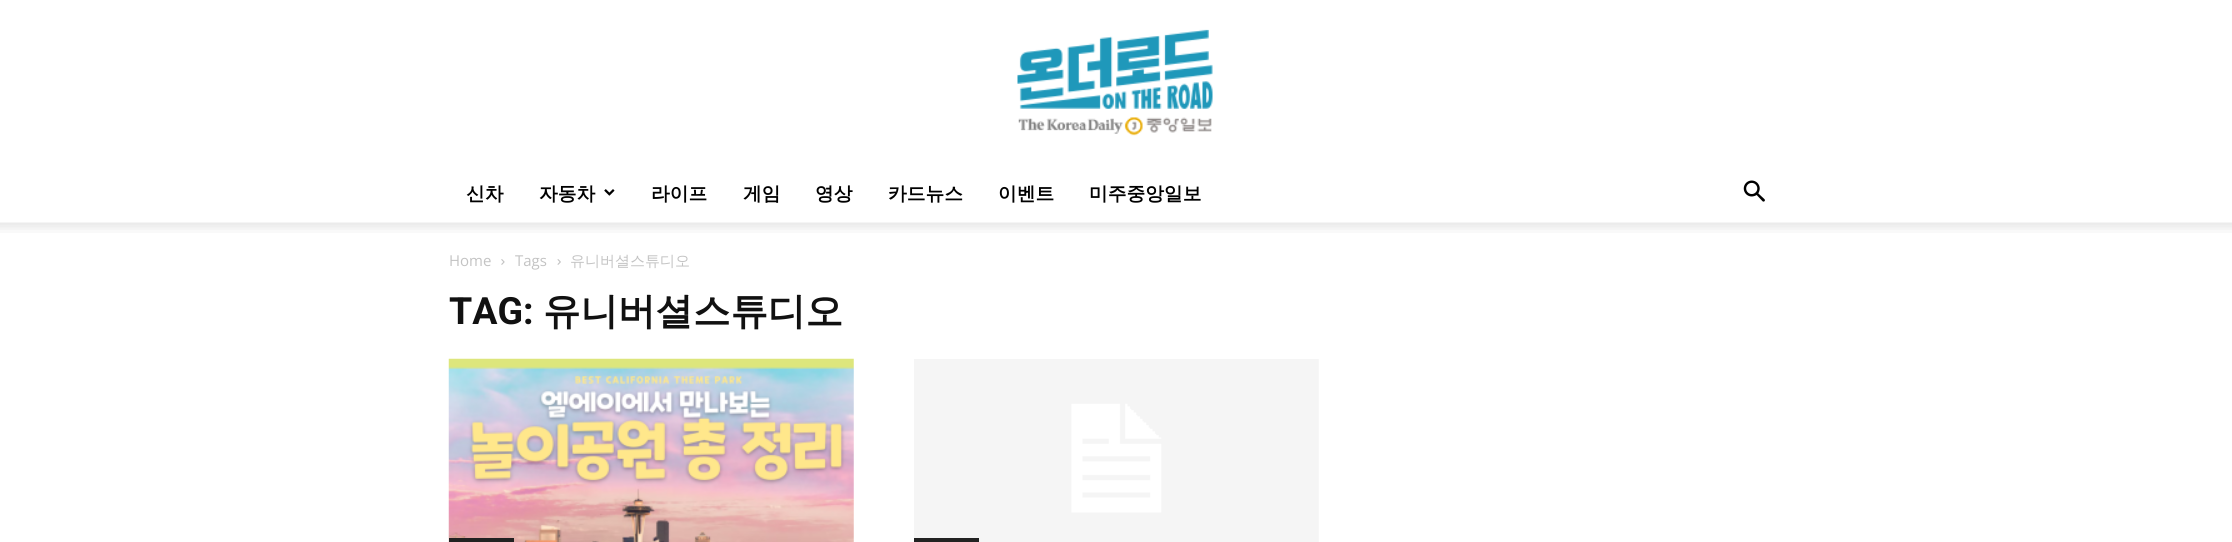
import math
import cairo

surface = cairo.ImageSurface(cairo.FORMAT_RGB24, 2232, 542)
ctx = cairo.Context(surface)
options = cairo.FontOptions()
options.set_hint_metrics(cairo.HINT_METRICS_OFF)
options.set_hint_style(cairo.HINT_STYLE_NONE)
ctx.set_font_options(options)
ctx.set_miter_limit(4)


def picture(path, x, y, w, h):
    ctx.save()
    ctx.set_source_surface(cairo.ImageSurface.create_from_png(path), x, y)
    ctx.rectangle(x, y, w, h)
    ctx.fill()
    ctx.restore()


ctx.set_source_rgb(1, 1, 1)
ctx.paint()
picture("img1.png", 1017, 29, 196, 107)
ctx.select_font_face("WenQuanYi Zen Hei", cairo.FONT_SLANT_NORMAL, cairo.FONT_WEIGHT_BOLD)
ctx.set_font_size(18.75)
ctx.set_source_rgb(0, 0, 0)
ctx.move_to(466, 200)
ctx.show_text("신차")
ctx.move_to(539, 200)
ctx.show_text("자동차")
picture("img2.png", 604, 189, 11, 7)
ctx.move_to(651, 200)
ctx.show_text("라이프")
ctx.move_to(743, 200)
ctx.show_text("게임")
ctx.move_to(815, 200)
ctx.show_text("영상")
ctx.move_to(888, 200)
ctx.show_text("카드뉴스")
ctx.move_to(998, 200)
ctx.show_text("이벤트")
ctx.move_to(1089, 200)
ctx.show_text("미주중앙일보")
picture("img3.png", 1743, 180, 22, 22)
picture("img4.png", 0, 222, 2232, 11)
ctx.select_font_face("Open Sans")
ctx.set_font_size(15)
ctx.set_source_rgb(0.765, 0.765, 0.765)
ctx.move_to(449, 266)
ctx.show_text("Home")
picture("img5.png", 501, 259, 4, 6)
ctx.move_to(515, 266)
ctx.show_text("Tags")
picture("img6.png", 557, 259, 4, 6)
ctx.select_font_face("WenQuanYi Zen Hei Medium")
ctx.move_to(570, 266)
ctx.show_text("유니버셜스튜디오")
ctx.select_font_face("Roboto", cairo.FONT_SLANT_NORMAL, cairo.FONT_WEIGHT_BOLD)
ctx.set_font_size(37.5)
ctx.set_source_rgb(0.067, 0.067, 0.067)
ctx.move_to(449, 324)
ctx.show_text("TAG:")
ctx.select_font_face("WenQuanYi Zen Hei", cairo.FONT_SLANT_NORMAL, cairo.FONT_WEIGHT_BOLD)
ctx.move_to(543, 324)
ctx.show_text("유니버셜스튜디오")
picture("img7.png", 448, 358, 406, 184)
ctx.set_source_rgb(0.133, 0.133, 0.133)
ctx.rectangle(449, 538, 65, 4)
ctx.fill()
picture("img8.png", 914, 359, 405, 183)
ctx.rectangle(914, 538, 65, 4)
ctx.fill()
surface.write_to_png("page.png")
